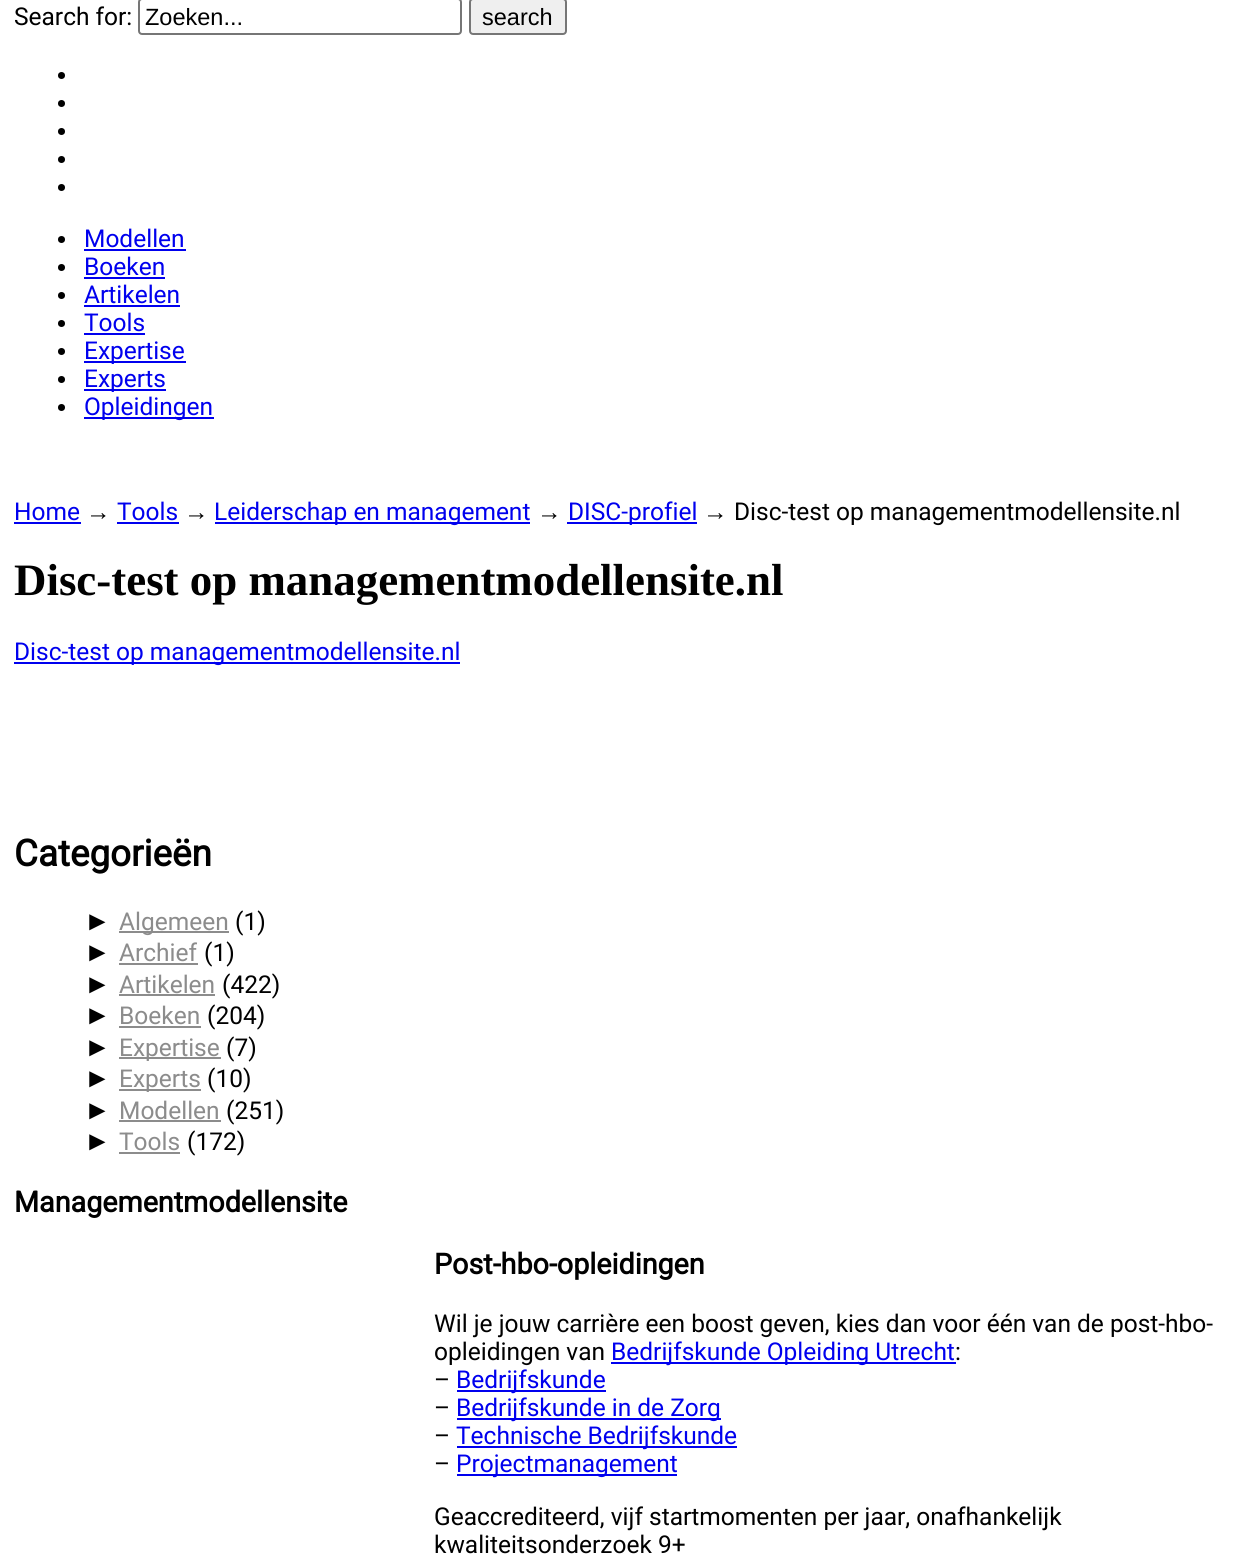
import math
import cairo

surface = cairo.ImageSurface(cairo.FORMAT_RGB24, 1247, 1559)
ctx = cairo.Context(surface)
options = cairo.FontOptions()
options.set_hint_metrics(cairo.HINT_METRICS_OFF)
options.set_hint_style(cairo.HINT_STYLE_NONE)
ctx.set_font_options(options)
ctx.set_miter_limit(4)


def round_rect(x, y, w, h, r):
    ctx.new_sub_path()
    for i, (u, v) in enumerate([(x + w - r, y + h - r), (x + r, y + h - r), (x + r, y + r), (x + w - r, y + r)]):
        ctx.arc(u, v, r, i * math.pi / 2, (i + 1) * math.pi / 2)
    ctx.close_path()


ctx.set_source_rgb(1, 1, 1)
ctx.paint()
ctx.select_font_face("Roboto")
ctx.set_font_size(24.5)
ctx.set_source_rgb(0, 0, 0)
ctx.move_to(14, 25)
ctx.show_text("Search for:")
round_rect(139, -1, 322, 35, 3)
ctx.set_source_rgb(0.463, 0.463, 0.463)
ctx.stroke()
ctx.select_font_face("Liberation Sans")
ctx.set_font_size(23.5)
ctx.set_source_rgb(0, 0, 0)
ctx.move_to(145, 25)
ctx.show_text("Zoeken...")
ctx.set_source_rgb(0.937, 0.937, 0.937)
round_rect(470, -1, 96, 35, 3)
ctx.fill_preserve()
ctx.set_source_rgb(0.463, 0.463, 0.463)
ctx.stroke()
ctx.set_source_rgb(0, 0, 0)
ctx.move_to(482, 25)
ctx.show_text("search")
ctx.new_path()
ctx.arc(61.5, 75.5, 3.5, 0, 2 * math.pi)
ctx.fill()
ctx.arc(61.5, 103.5, 3.5, 0, 2 * math.pi)
ctx.fill()
ctx.arc(61.5, 131.5, 3.5, 0, 2 * math.pi)
ctx.fill()
ctx.arc(61.5, 159.5, 3.5, 0, 2 * math.pi)
ctx.fill()
ctx.arc(61.5, 187.5, 3.5, 0, 2 * math.pi)
ctx.fill()
ctx.arc(61.5, 239.5, 3.5, 0, 2 * math.pi)
ctx.fill()
ctx.select_font_face("Roboto")
ctx.set_font_size(24.5)
ctx.set_source_rgb(0, 0, 0.933)
ctx.move_to(84, 247)
ctx.show_text("Modellen")
ctx.rectangle(84, 249, 102, 2)
ctx.fill()
ctx.set_source_rgb(0, 0, 0)
ctx.arc(61.5, 267.5, 3.5, 0, 2 * math.pi)
ctx.fill()
ctx.set_source_rgb(0, 0, 0.933)
ctx.move_to(84, 275)
ctx.show_text("Boeken")
ctx.rectangle(84, 277, 81, 2)
ctx.fill()
ctx.set_source_rgb(0, 0, 0)
ctx.arc(61.5, 295.5, 3.5, 0, 2 * math.pi)
ctx.fill()
ctx.set_source_rgb(0, 0, 0.933)
ctx.move_to(84, 303)
ctx.show_text("Artikelen")
ctx.rectangle(84, 305, 96, 2)
ctx.fill()
ctx.set_source_rgb(0, 0, 0)
ctx.arc(61.5, 323.5, 3.5, 0, 2 * math.pi)
ctx.fill()
ctx.set_source_rgb(0, 0, 0.933)
ctx.move_to(84, 331)
ctx.show_text("Tools")
ctx.rectangle(84, 333, 61, 2)
ctx.fill()
ctx.set_source_rgb(0, 0, 0)
ctx.arc(61.5, 351.5, 3.5, 0, 2 * math.pi)
ctx.fill()
ctx.set_source_rgb(0, 0, 0.933)
ctx.rectangle(84, 361, 102, 2)
ctx.fill()
ctx.move_to(84, 359)
ctx.show_text("Expertise")
ctx.set_source_rgb(0, 0, 0)
ctx.new_path()
ctx.arc(61.5, 379.5, 3.5, 0, 2 * math.pi)
ctx.fill()
ctx.set_source_rgb(0, 0, 0.933)
ctx.rectangle(84, 389, 82, 2)
ctx.fill()
ctx.move_to(84, 387)
ctx.show_text("Experts")
ctx.set_source_rgb(0, 0, 0)
ctx.new_path()
ctx.arc(61.5, 407.5, 3.5, 0, 2 * math.pi)
ctx.fill()
ctx.set_source_rgb(0, 0, 0.933)
ctx.rectangle(84, 417, 130, 2)
ctx.fill()
ctx.move_to(84, 415)
ctx.show_text("Opleidingen")
ctx.move_to(14, 520)
ctx.show_text("Home")
ctx.rectangle(14, 522, 67, 2)
ctx.fill()
ctx.select_font_face("Liberation Sans")
ctx.set_source_rgb(0, 0, 0)
ctx.move_to(86, 520)
ctx.show_text("→")
ctx.select_font_face("Roboto")
ctx.set_source_rgb(0, 0, 0.933)
ctx.move_to(117, 520)
ctx.show_text("Tools")
ctx.rectangle(117, 522, 62, 2)
ctx.fill()
ctx.select_font_face("Liberation Sans")
ctx.set_source_rgb(0, 0, 0)
ctx.move_to(184, 520)
ctx.show_text("→")
ctx.set_source_rgb(0, 0, 0.933)
ctx.rectangle(215, 522, 315, 2)
ctx.fill()
ctx.select_font_face("Roboto")
ctx.move_to(214, 520)
ctx.show_text("Leiderschap en management")
ctx.select_font_face("Liberation Sans")
ctx.set_source_rgb(0, 0, 0)
ctx.move_to(537, 520)
ctx.show_text("→")
ctx.set_source_rgb(0, 0, 0.933)
ctx.rectangle(567, 522, 130, 2)
ctx.fill()
ctx.select_font_face("Roboto")
ctx.move_to(568, 520)
ctx.show_text("DISC-profiel")
ctx.select_font_face("Liberation Sans")
ctx.set_source_rgb(0, 0, 0)
ctx.move_to(703, 520)
ctx.show_text("→")
ctx.select_font_face("Roboto")
ctx.move_to(734, 520)
ctx.show_text("Disc-test op managementmodellensite.nl")
ctx.select_font_face("Liberation Serif", cairo.FONT_SLANT_NORMAL, cairo.FONT_WEIGHT_BOLD)
ctx.set_font_size(44.9)
ctx.move_to(14, 595)
ctx.show_text("Disc-test op managementmodellensite.nl")
ctx.set_source_rgb(0, 0, 0.933)
ctx.rectangle(14, 662, 446, 2)
ctx.fill()
ctx.select_font_face("Roboto")
ctx.set_font_size(24.5)
ctx.move_to(14, 660)
ctx.show_text("Disc-test op managementmodellensite.nl")
ctx.select_font_face("Roboto", cairo.FONT_SLANT_NORMAL, cairo.FONT_WEIGHT_BOLD)
ctx.set_font_size(36.75)
ctx.set_source_rgb(0, 0, 0)
ctx.move_to(14, 866)
ctx.show_text("Categorieën")
ctx.select_font_face("Liberation Sans")
ctx.set_font_size(27)
ctx.move_to(84, 930)
ctx.show_text("►")
ctx.set_source_rgb(0.549, 0.549, 0.549)
ctx.rectangle(119, 931, 110, 2)
ctx.fill()
ctx.select_font_face("Roboto")
ctx.set_font_size(24.5)
ctx.move_to(119, 930)
ctx.show_text("Algemeen")
ctx.set_source_rgb(0, 0, 0)
ctx.move_to(235, 930)
ctx.show_text("(1)")
ctx.select_font_face("Liberation Sans")
ctx.set_font_size(27)
ctx.move_to(84, 961)
ctx.show_text("►")
ctx.select_font_face("Roboto")
ctx.set_font_size(24.5)
ctx.set_source_rgb(0.549, 0.549, 0.549)
ctx.move_to(119, 961)
ctx.show_text("Archief")
ctx.rectangle(119, 963, 79, 2)
ctx.fill()
ctx.set_source_rgb(0, 0, 0)
ctx.move_to(204, 961)
ctx.show_text("(1)")
ctx.select_font_face("Liberation Sans")
ctx.set_font_size(27)
ctx.move_to(84, 993)
ctx.show_text("►")
ctx.select_font_face("Roboto")
ctx.set_font_size(24.5)
ctx.set_source_rgb(0.549, 0.549, 0.549)
ctx.move_to(119, 993)
ctx.show_text("Artikelen")
ctx.rectangle(119, 994, 96, 2)
ctx.fill()
ctx.set_source_rgb(0, 0, 0)
ctx.move_to(222, 993)
ctx.show_text("(422)")
ctx.select_font_face("Liberation Sans")
ctx.set_font_size(27)
ctx.move_to(84, 1024)
ctx.show_text("►")
ctx.select_font_face("Roboto")
ctx.set_font_size(24.5)
ctx.set_source_rgb(0.549, 0.549, 0.549)
ctx.move_to(119, 1024)
ctx.show_text("Boeken")
ctx.rectangle(119, 1026, 82, 2)
ctx.fill()
ctx.set_source_rgb(0, 0, 0)
ctx.move_to(207, 1024)
ctx.show_text("(204)")
ctx.select_font_face("Liberation Sans")
ctx.set_font_size(27)
ctx.move_to(84, 1056)
ctx.show_text("►")
ctx.set_source_rgb(0.549, 0.549, 0.549)
ctx.rectangle(119, 1057, 102, 2)
ctx.fill()
ctx.select_font_face("Roboto")
ctx.set_font_size(24.5)
ctx.move_to(119, 1056)
ctx.show_text("Expertise")
ctx.set_source_rgb(0, 0, 0)
ctx.move_to(226, 1056)
ctx.show_text("(7)")
ctx.select_font_face("Liberation Sans")
ctx.set_font_size(27)
ctx.move_to(84, 1087)
ctx.show_text("►")
ctx.set_source_rgb(0.549, 0.549, 0.549)
ctx.rectangle(119, 1089, 82, 2)
ctx.fill()
ctx.select_font_face("Roboto")
ctx.set_font_size(24.5)
ctx.move_to(119, 1087)
ctx.show_text("Experts")
ctx.set_source_rgb(0, 0, 0)
ctx.move_to(207, 1087)
ctx.show_text("(10)")
ctx.select_font_face("Liberation Sans")
ctx.set_font_size(27)
ctx.move_to(84, 1119)
ctx.show_text("►")
ctx.select_font_face("Roboto")
ctx.set_font_size(24.5)
ctx.set_source_rgb(0.549, 0.549, 0.549)
ctx.move_to(119, 1119)
ctx.show_text("Modellen")
ctx.rectangle(119, 1120, 102, 2)
ctx.fill()
ctx.set_source_rgb(0, 0, 0)
ctx.move_to(226, 1119)
ctx.show_text("(251)")
ctx.select_font_face("Liberation Sans")
ctx.set_font_size(27)
ctx.move_to(84, 1150)
ctx.show_text("►")
ctx.select_font_face("Roboto")
ctx.set_font_size(24.5)
ctx.set_source_rgb(0.549, 0.549, 0.549)
ctx.move_to(119, 1150)
ctx.show_text("Tools")
ctx.rectangle(119, 1152, 61, 2)
ctx.fill()
ctx.set_source_rgb(0, 0, 0)
ctx.move_to(187, 1150)
ctx.show_text("(172)")
ctx.select_font_face("Roboto", cairo.FONT_SLANT_NORMAL, cairo.FONT_WEIGHT_BOLD)
ctx.set_font_size(28.7)
ctx.move_to(14, 1212)
ctx.show_text("Managementmodellensite")
ctx.move_to(434, 1274)
ctx.show_text("Post-hbo-opleidingen")
ctx.select_font_face("Roboto")
ctx.set_font_size(24.5)
ctx.move_to(434, 1332)
ctx.show_text("Wil je jouw carrière een boost geven, kies dan voor één van de post-hbo-")
ctx.move_to(434, 1360)
ctx.show_text("opleidingen van")
ctx.set_source_rgb(0, 0, 0.933)
ctx.rectangle(611, 1362, 345, 2)
ctx.fill()
ctx.move_to(611, 1360)
ctx.show_text("Bedrijfskunde Opleiding Utrecht")
ctx.set_source_rgb(0, 0, 0)
ctx.move_to(955, 1360)
ctx.show_text(":")
ctx.move_to(434, 1388)
ctx.show_text("–")
ctx.set_source_rgb(0, 0, 0.933)
ctx.rectangle(457, 1390, 149, 2)
ctx.fill()
ctx.move_to(456, 1388)
ctx.show_text("Bedrijfskunde")
ctx.set_source_rgb(0, 0, 0)
ctx.move_to(434, 1416)
ctx.show_text("–")
ctx.set_source_rgb(0, 0, 0.933)
ctx.rectangle(457, 1418, 264, 2)
ctx.fill()
ctx.move_to(456, 1416)
ctx.show_text("Bedrijfskunde in de Zorg")
ctx.set_source_rgb(0, 0, 0)
ctx.move_to(434, 1444)
ctx.show_text("–")
ctx.set_source_rgb(0, 0, 0.933)
ctx.rectangle(457, 1446, 280, 2)
ctx.fill()
ctx.move_to(456, 1444)
ctx.show_text("Technische Bedrijfskunde")
ctx.set_source_rgb(0, 0, 0)
ctx.move_to(434, 1472)
ctx.show_text("–")
ctx.set_source_rgb(0, 0, 0.933)
ctx.rectangle(457, 1474, 220, 2)
ctx.fill()
ctx.move_to(456, 1472)
ctx.show_text("Projectmanagement")
ctx.set_source_rgb(0, 0, 0)
ctx.move_to(434, 1525)
ctx.show_text("Geaccrediteerd, vijf startmomenten per jaar, onafhankelijk")
ctx.move_to(434, 1553)
ctx.show_text("kwaliteitsonderzoek 9+")
surface.write_to_png("page.png")
